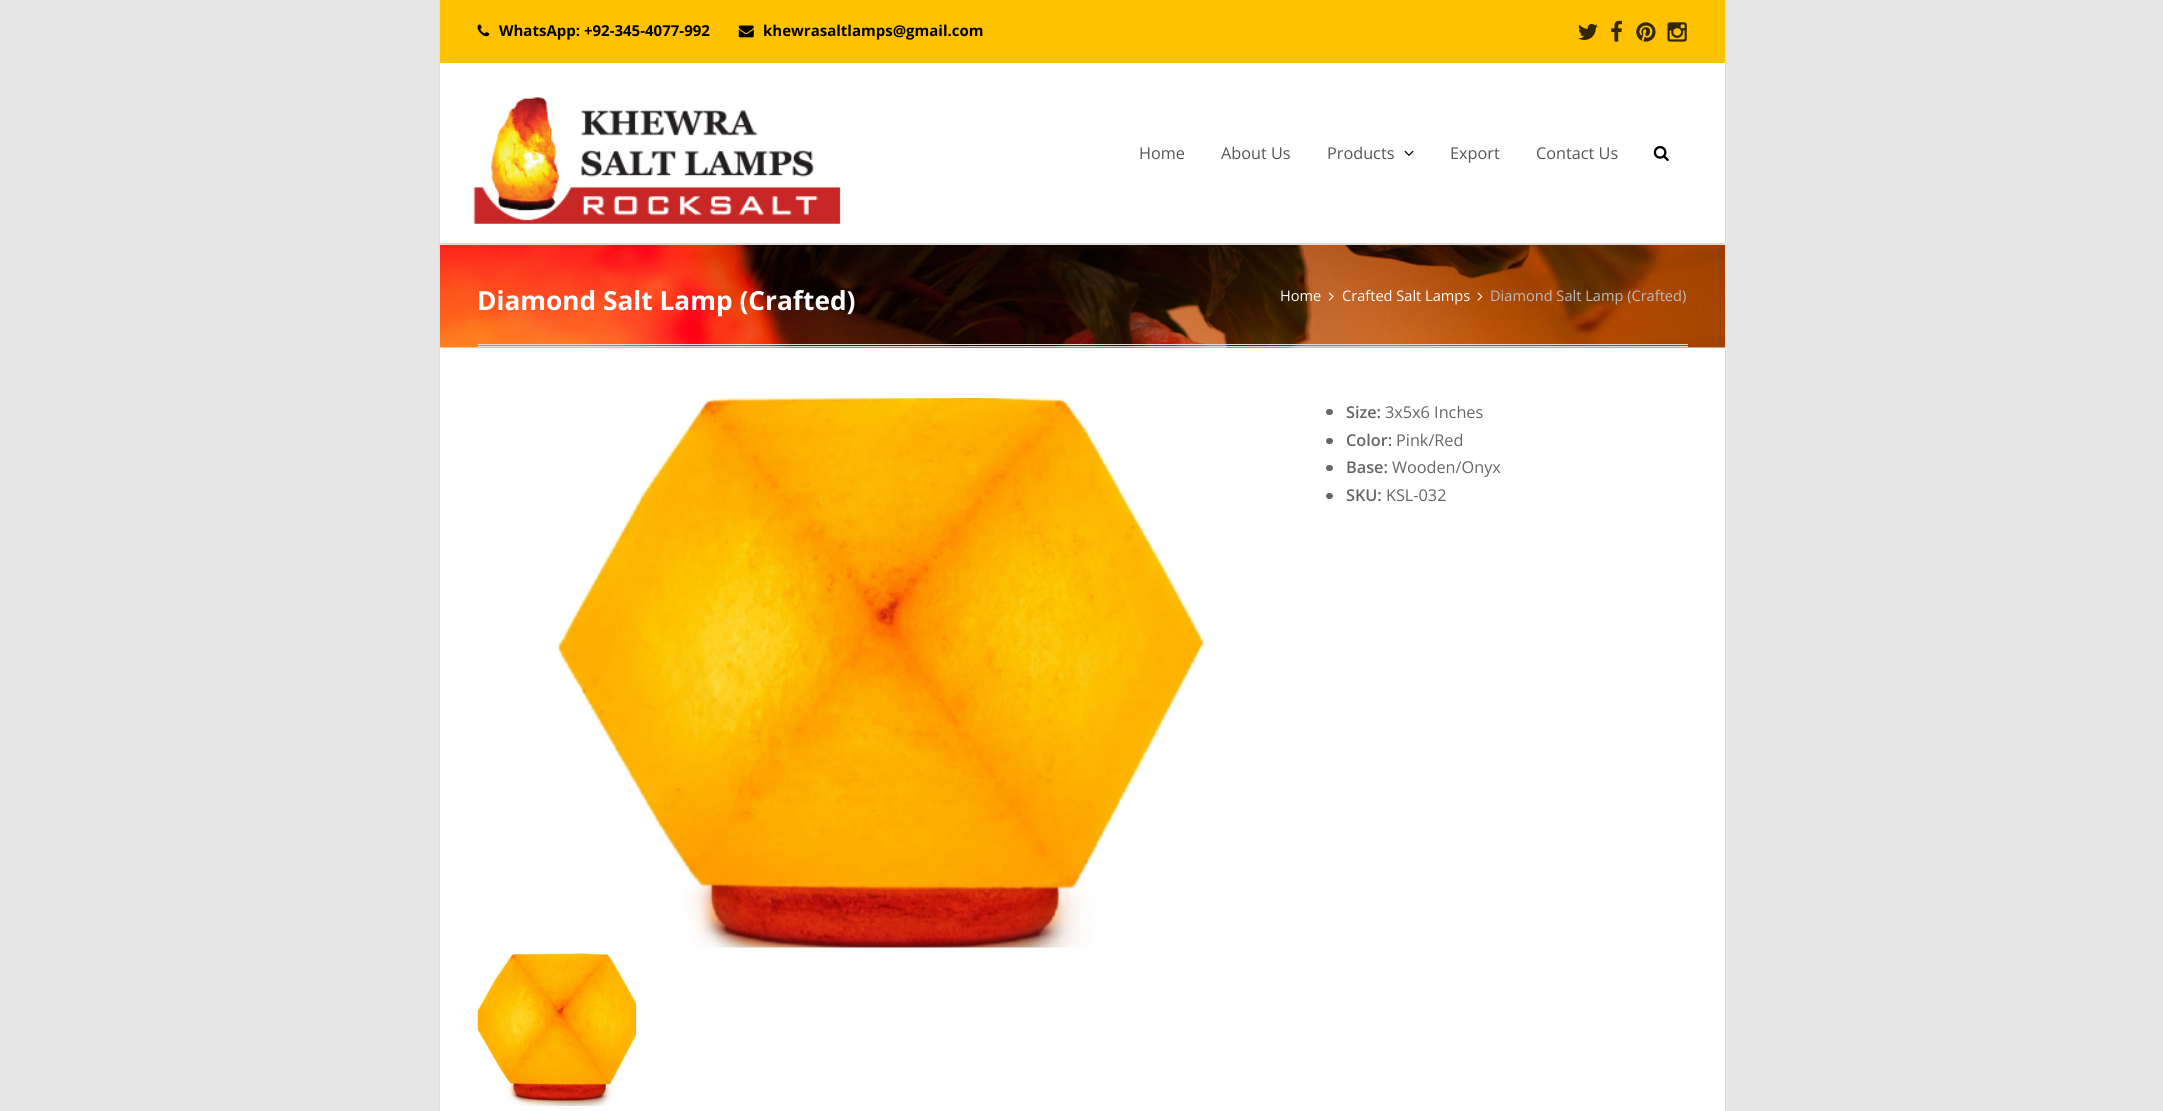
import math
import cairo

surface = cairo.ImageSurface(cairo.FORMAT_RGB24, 2163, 1111)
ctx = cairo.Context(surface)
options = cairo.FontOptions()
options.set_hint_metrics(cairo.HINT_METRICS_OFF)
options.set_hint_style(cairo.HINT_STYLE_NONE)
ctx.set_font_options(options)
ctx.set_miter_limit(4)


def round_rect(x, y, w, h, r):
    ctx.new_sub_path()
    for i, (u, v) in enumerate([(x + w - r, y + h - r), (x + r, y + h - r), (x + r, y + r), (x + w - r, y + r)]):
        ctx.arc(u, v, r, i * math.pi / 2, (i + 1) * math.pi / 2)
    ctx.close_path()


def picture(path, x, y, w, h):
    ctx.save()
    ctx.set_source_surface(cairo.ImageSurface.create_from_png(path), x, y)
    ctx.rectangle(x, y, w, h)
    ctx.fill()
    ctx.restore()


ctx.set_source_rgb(0.902, 0.902, 0.902)
ctx.paint()
ctx.set_source_rgb(1, 0.761, 0)
ctx.rectangle(440, 0, 1285, 63)
ctx.fill()
ctx.set_source_rgb(0.867, 0.867, 0.867)
ctx.rectangle(1725, 0, 1, 244)
ctx.fill()
ctx.rectangle(439, 0, 1, 63)
ctx.fill()
picture("img1.png", 477, 24, 13, 13)
ctx.select_font_face("Open Sans", cairo.FONT_SLANT_NORMAL, cairo.FONT_WEIGHT_BOLD)
ctx.set_font_size(15)
ctx.set_source_rgb(0, 0, 0)
ctx.move_to(499, 36)
ctx.show_text("WhatsApp: +92-345-4077-992")
picture("img2.png", 738, 25, 16, 13)
ctx.move_to(763, 36)
ctx.show_text("khewrasaltlamps@gmail.com")
picture("img3.png", 1578, 23, 20, 17)
picture("img4.png", 1611, 20, 12, 22)
picture("img5.png", 1636, 22, 20, 20)
picture("img6.png", 1667, 22, 20, 20)
ctx.set_source_rgb(1, 1, 1)
ctx.rectangle(440, 63, 1285, 180)
ctx.fill()
ctx.set_source_rgb(0.867, 0.867, 0.867)
ctx.rectangle(439, 243, 1287, 1)
ctx.fill()
ctx.rectangle(439, 63, 1, 181)
ctx.fill()
picture("img7.png", 473, 96, 368, 128)
ctx.select_font_face("Open Sans")
ctx.set_font_size(16.25)
ctx.set_source_rgb(0.333, 0.333, 0.333)
ctx.move_to(1139, 159)
ctx.show_text("Home")
ctx.move_to(1221, 159)
ctx.show_text("About Us")
ctx.move_to(1327, 159)
ctx.show_text("Products")
picture("img8.png", 1404, 150, 10, 6)
ctx.move_to(1450, 159)
ctx.show_text("Export")
ctx.move_to(1536, 159)
ctx.show_text("Contact Us")
picture("img9.png", 1653, 146, 16, 16)
ctx.set_source_rgb(1, 1, 1)
ctx.rectangle(440, 347, 1285, 764)
ctx.fill()
ctx.rectangle(439.5, 244.5, 1286, 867)
ctx.set_source_rgb(0.867, 0.867, 0.867)
ctx.set_line_width(1)
ctx.stroke()
picture("img10.png", 440, 245, 1285, 103)
ctx.rectangle(478, 344, 1210, 1)
ctx.fill()
ctx.rectangle(478, 346, 1210, 1)
ctx.fill()
ctx.select_font_face("Open Sans", cairo.FONT_SLANT_NORMAL, cairo.FONT_WEIGHT_BOLD)
ctx.set_font_size(26.25)
ctx.set_source_rgb(1, 1, 1)
ctx.move_to(477, 310)
ctx.show_text("Diamond Salt Lamp (Crafted)")
ctx.select_font_face("Open Sans")
ctx.set_font_size(14.6)
ctx.move_to(1280, 301)
ctx.show_text("Home")
picture("img11.png", 1328, 292, 6, 9)
ctx.move_to(1342, 301)
ctx.show_text("Crafted Salt Lamps")
picture("img12.png", 1477, 292, 6, 9)
ctx.set_source_rgb(0.737, 0.737, 0.737)
ctx.move_to(1490, 301)
ctx.show_text("Diamond Salt Lamp (Crafted)")
picture("img13.png", 558, 398, 647, 550)
picture("img14.png", 477, 953, 160, 153)
ctx.set_source_rgb(0.4, 0.4, 0.4)
round_rect(1326, 409, 7, 6, 3)
ctx.fill()
ctx.select_font_face("Open Sans SemiBold")
ctx.set_font_size(16.25)
ctx.move_to(1346, 418)
ctx.show_text("Size:")
ctx.select_font_face("Open Sans")
ctx.move_to(1385, 418)
ctx.show_text("3x5x6 Inches")
round_rect(1326, 438, 7, 6, 3)
ctx.fill()
ctx.select_font_face("Open Sans SemiBold")
ctx.move_to(1346, 446)
ctx.show_text("Color:")
ctx.select_font_face("Open Sans")
ctx.move_to(1396, 446)
ctx.show_text("Pink/Red")
round_rect(1326, 465, 7, 6, 3)
ctx.fill()
ctx.select_font_face("Open Sans SemiBold")
ctx.move_to(1346, 473)
ctx.show_text("Base:")
ctx.select_font_face("Open Sans")
ctx.move_to(1392, 473)
ctx.show_text("Wooden/Onyx")
round_rect(1326, 493, 7, 6, 3)
ctx.fill()
ctx.select_font_face("Open Sans SemiBold")
ctx.move_to(1346, 501)
ctx.show_text("SKU:")
ctx.select_font_face("Open Sans")
ctx.move_to(1386, 501)
ctx.show_text("KSL-032")
surface.write_to_png("page.png")
